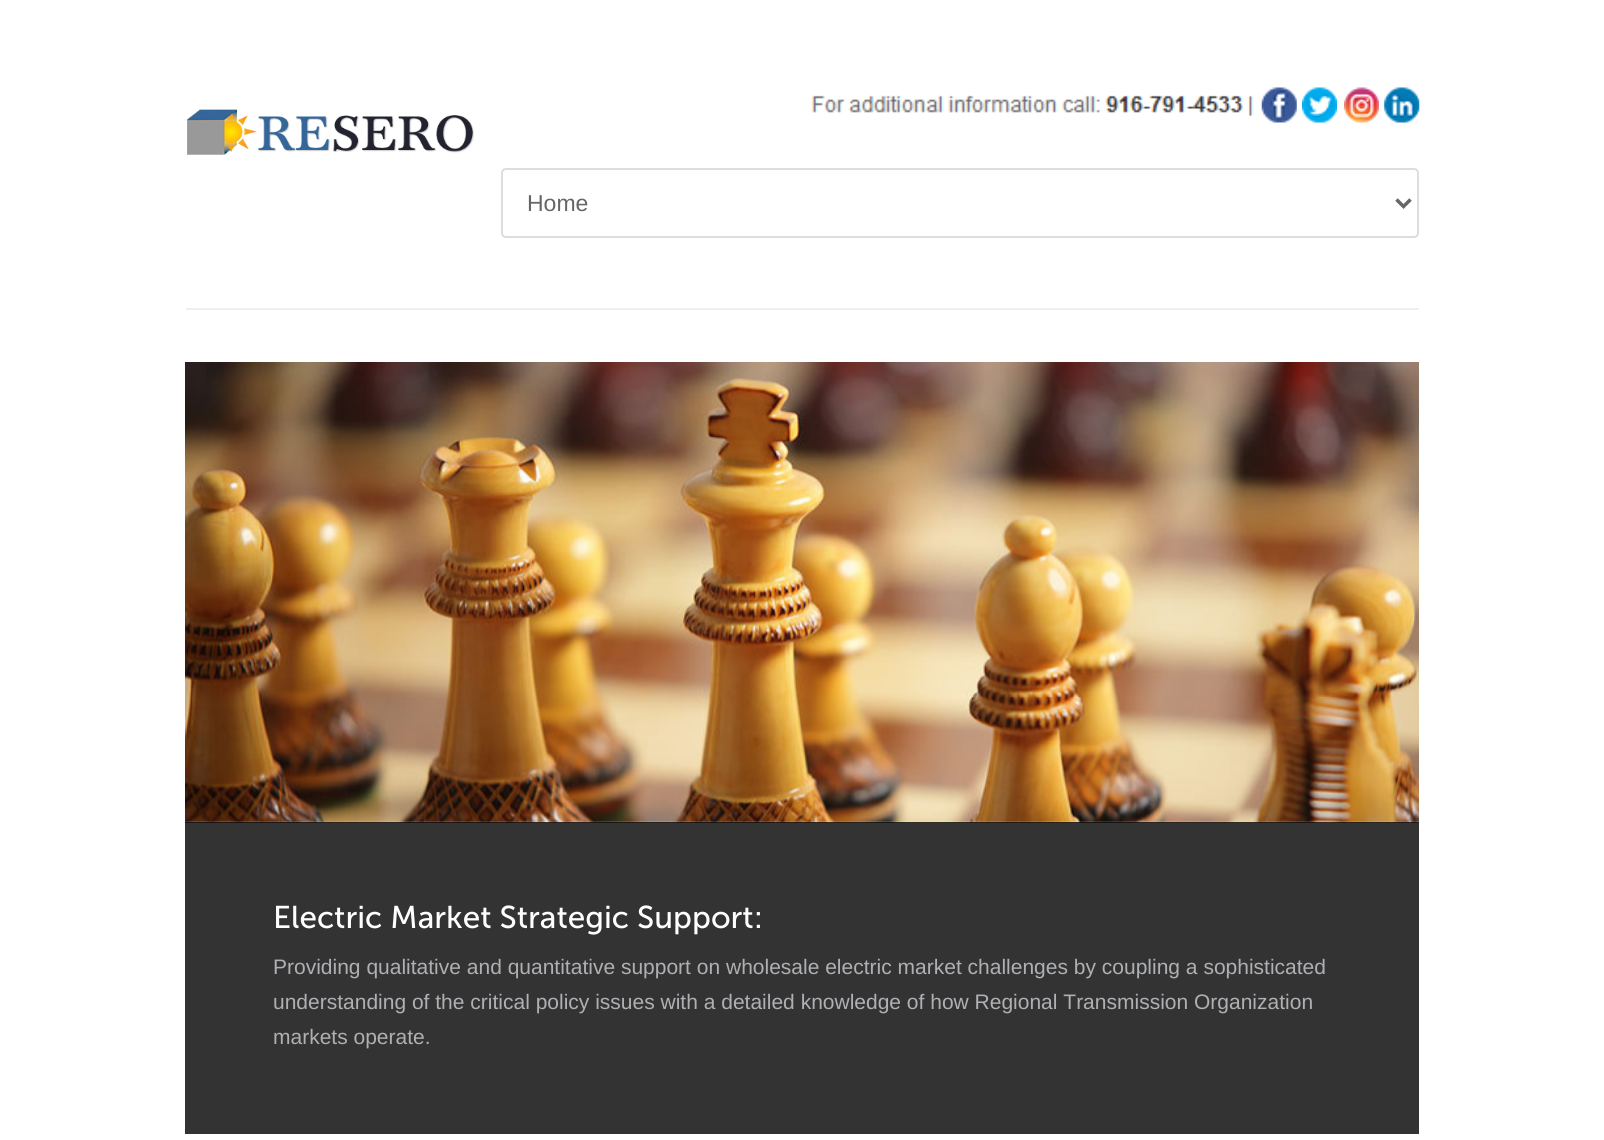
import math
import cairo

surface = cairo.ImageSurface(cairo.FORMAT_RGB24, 1604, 1140)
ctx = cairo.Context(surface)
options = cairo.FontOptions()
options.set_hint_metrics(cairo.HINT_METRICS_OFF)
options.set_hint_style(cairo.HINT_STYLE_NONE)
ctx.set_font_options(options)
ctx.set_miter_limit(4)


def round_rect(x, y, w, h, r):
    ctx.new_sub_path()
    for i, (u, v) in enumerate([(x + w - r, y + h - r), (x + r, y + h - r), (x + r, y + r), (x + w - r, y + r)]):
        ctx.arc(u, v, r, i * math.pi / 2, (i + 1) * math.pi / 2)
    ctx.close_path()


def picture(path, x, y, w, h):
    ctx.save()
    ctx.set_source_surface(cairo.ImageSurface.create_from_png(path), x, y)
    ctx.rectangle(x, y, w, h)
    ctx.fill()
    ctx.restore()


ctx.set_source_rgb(1, 1, 1)
ctx.paint()
picture("img1.png", 187, 109, 287, 46)
picture("img2.png", 811, 95, 443, 21)
picture("img3.png", 1261, 87, 36, 36)
picture("img4.png", 1302, 87, 35, 36)
picture("img5.png", 1344, 87, 35, 36)
picture("img6.png", 1384, 87, 36, 36)
round_rect(502, 169, 916, 68, 4)
ctx.set_source_rgb(0.867, 0.867, 0.867)
ctx.stroke()
ctx.new_path()
ctx.move_to(1396.5, 199.5)
ctx.line_to(1403.5, 206.5)
ctx.line_to(1410.5, 199.5)
ctx.set_source_rgb(0.4, 0.4, 0.4)
ctx.set_line_width(3.5)
ctx.stroke()
ctx.select_font_face("Liberation Sans")
ctx.set_font_size(23)
ctx.move_to(527, 211)
ctx.show_text("Home")
ctx.set_source_rgb(0.937, 0.937, 0.937)
ctx.rectangle(186, 308, 1233, 2)
ctx.fill()
picture("img7.png", 185, 362, 1234, 461)
ctx.set_source_rgba(0, 0, 0, 0.8)
ctx.rectangle(185, 822, 1234, 312)
ctx.fill()
ctx.select_font_face("Museo Sans")
ctx.set_font_size(31.5)
ctx.set_source_rgb(1, 1, 1)
ctx.move_to(273, 928)
ctx.show_text("Electric Market Strategic Support:")
ctx.select_font_face("Liberation Sans")
ctx.set_font_size(21)
ctx.set_source_rgb(0.682, 0.69, 0.702)
ctx.move_to(273, 974)
ctx.show_text("Providing qualitative and quantitative support on wholesale electric market challenges by coupling a sophisticated")
ctx.move_to(273, 1009)
ctx.show_text("understanding of the critical policy issues with a detailed knowledge of how Regional Transmission Organization")
ctx.move_to(273, 1044)
ctx.show_text("markets operate.")
surface.write_to_png("page.png")
